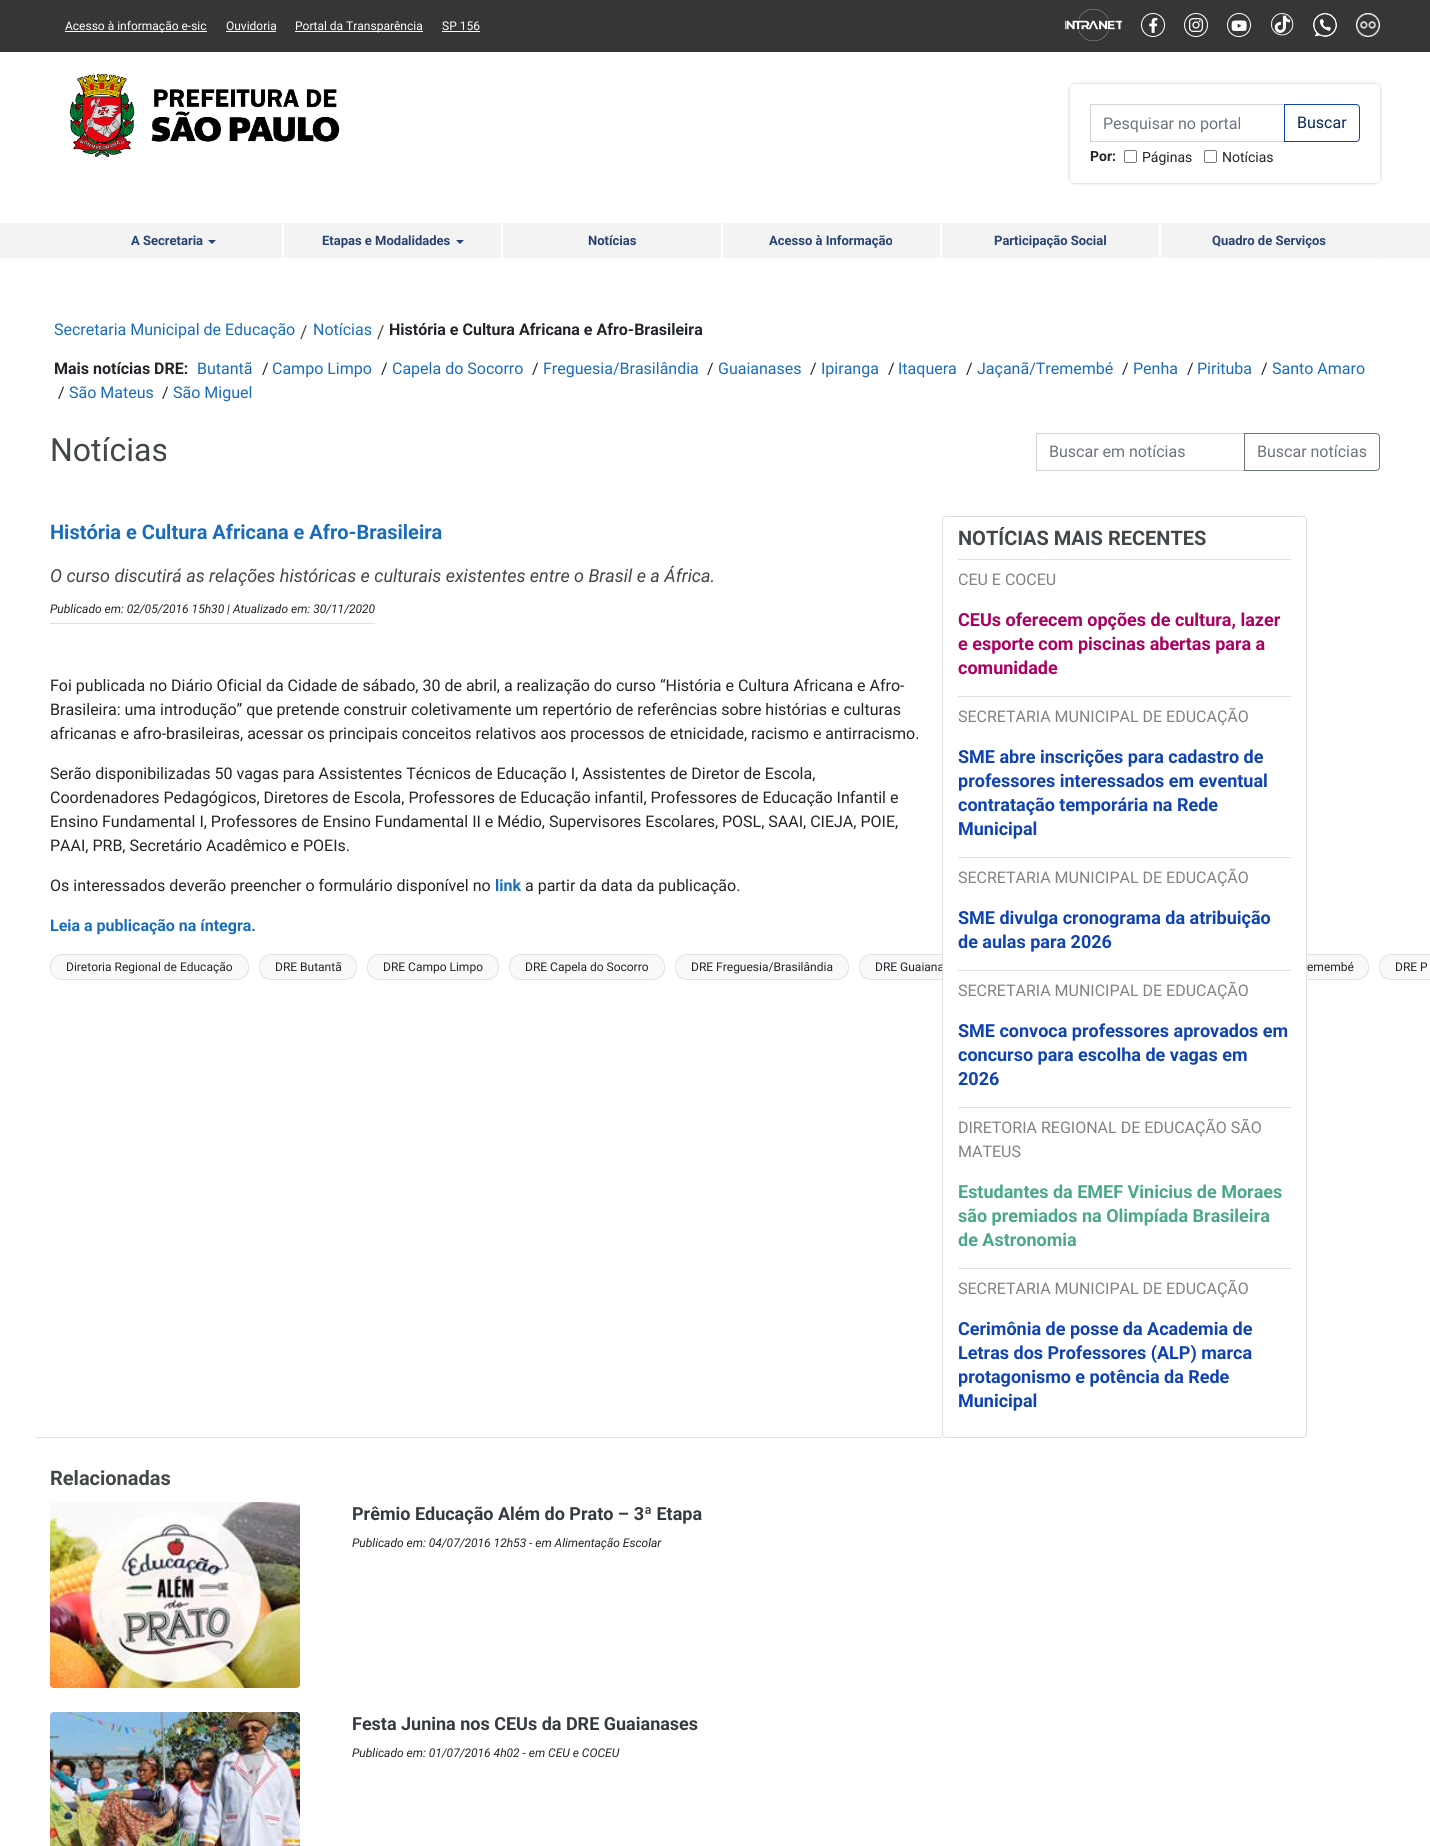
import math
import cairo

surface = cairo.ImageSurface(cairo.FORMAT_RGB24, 1430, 1846)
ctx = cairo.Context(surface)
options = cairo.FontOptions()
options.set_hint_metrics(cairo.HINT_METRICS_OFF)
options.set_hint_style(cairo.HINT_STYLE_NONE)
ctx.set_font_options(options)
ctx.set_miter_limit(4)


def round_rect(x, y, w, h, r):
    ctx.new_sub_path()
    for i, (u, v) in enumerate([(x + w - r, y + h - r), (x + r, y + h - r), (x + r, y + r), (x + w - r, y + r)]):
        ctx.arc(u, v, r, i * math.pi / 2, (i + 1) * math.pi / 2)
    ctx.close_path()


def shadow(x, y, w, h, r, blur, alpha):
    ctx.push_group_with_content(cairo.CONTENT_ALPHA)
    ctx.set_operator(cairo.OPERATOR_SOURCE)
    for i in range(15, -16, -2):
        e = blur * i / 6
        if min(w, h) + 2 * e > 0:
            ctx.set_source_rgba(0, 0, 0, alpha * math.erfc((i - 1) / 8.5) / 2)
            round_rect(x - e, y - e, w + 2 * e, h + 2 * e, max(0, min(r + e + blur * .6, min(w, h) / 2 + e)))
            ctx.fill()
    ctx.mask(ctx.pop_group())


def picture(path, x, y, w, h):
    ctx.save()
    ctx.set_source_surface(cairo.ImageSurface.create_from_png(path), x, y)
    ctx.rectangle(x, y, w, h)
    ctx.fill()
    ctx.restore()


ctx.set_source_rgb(1, 1, 1)
ctx.paint()
ctx.set_source_rgb(0.212, 0.212, 0.212)
ctx.rectangle(0, 0, 1430, 52)
ctx.fill()
ctx.set_source_rgb(1, 1, 1)
ctx.rectangle(65, 31, 142, 1)
ctx.fill()
ctx.select_font_face("Roboto")
ctx.set_font_size(12)
ctx.move_to(65, 30)
ctx.show_text("Acesso à informação e-sic")
ctx.move_to(226, 30)
ctx.show_text("Ouvidoria")
ctx.rectangle(226, 31, 50, 1)
ctx.fill()
ctx.rectangle(295, 31, 128, 1)
ctx.fill()
ctx.move_to(295, 30)
ctx.show_text("Portal da Transparência")
ctx.move_to(442, 30)
ctx.show_text("SP 156")
ctx.rectangle(442, 31, 38, 1)
ctx.fill()
picture("img1.png", 1065, 9, 57, 32)
picture("img2.png", 1141, 13, 24, 24)
picture("img3.png", 1184, 13, 24, 24)
picture("img4.png", 1227, 13, 24, 24)
picture("img5.png", 1271, 13, 23, 23)
picture("img6.png", 1313, 13, 24, 24)
picture("img7.png", 1356, 13, 24, 24)
picture("img8.png", 69, 74, 271, 83)
ctx.save()
ctx.set_fill_rule(cairo.FILL_RULE_EVEN_ODD)
ctx.new_path()
ctx.move_to(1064, 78)
ctx.line_to(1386, 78)
ctx.line_to(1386, 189)
ctx.line_to(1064, 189)
ctx.close_path()
ctx.move_to(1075, 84)
ctx.line_to(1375, 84)
ctx.curve_to(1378, 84, 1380, 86, 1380, 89)
ctx.line_to(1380, 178)
ctx.curve_to(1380, 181, 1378, 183, 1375, 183)
ctx.line_to(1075, 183)
ctx.curve_to(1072, 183, 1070, 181, 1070, 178)
ctx.line_to(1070, 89)
ctx.curve_to(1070, 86, 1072, 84, 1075, 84)
ctx.close_path()
ctx.clip()
ctx.set_source_rgb(0.757, 0.733, 0.733)
shadow(1070, 84, 310, 99, 5, 1.5, 1)
ctx.restore()
ctx.rectangle(1090.5, 104.5, 194, 37)
ctx.set_source_rgb(0.808, 0.831, 0.855)
ctx.set_line_width(1)
ctx.stroke()
ctx.set_font_size(16)
ctx.set_source_rgb(0.424, 0.459, 0.49)
ctx.move_to(1103, 129)
ctx.show_text("Pesquisar no portal")
ctx.new_path()
ctx.move_to(1284.5, 104.5)
ctx.line_to(1356, 104.5)
ctx.curve_to(1358, 104.5, 1359.5, 106, 1359.5, 108)
ctx.line_to(1359.5, 138)
ctx.curve_to(1359.5, 140, 1358, 141.5, 1356, 141.5)
ctx.line_to(1284.5, 141.5)
ctx.close_path()
ctx.set_source_rgb(0.059, 0.259, 0.698)
ctx.stroke()
ctx.set_source_rgb(0.016, 0.169, 0.357)
ctx.move_to(1297, 128)
ctx.show_text("Buscar")
ctx.select_font_face("Roboto", cairo.FONT_SLANT_NORMAL, cairo.FONT_WEIGHT_BOLD)
ctx.set_font_size(14)
ctx.set_source_rgb(0.129, 0.145, 0.161)
ctx.move_to(1090, 161)
ctx.show_text("Por:")
round_rect(1124.5, 150.5, 12, 12, 1.5)
ctx.set_source_rgb(0.463, 0.463, 0.463)
ctx.stroke()
ctx.select_font_face("Roboto")
ctx.set_source_rgb(0.129, 0.145, 0.161)
ctx.move_to(1142, 162)
ctx.show_text("Páginas")
round_rect(1204.5, 150.5, 12, 12, 1.5)
ctx.set_source_rgb(0.463, 0.463, 0.463)
ctx.stroke()
ctx.set_source_rgb(0.129, 0.145, 0.161)
ctx.move_to(1222, 162)
ctx.show_text("Notícias")
ctx.set_source_rgb(0.953, 0.953, 0.953)
ctx.rectangle(0, 223, 1430, 35)
ctx.fill()
ctx.set_source_rgb(1, 1, 1)
ctx.rectangle(282, 223, 2, 36)
ctx.fill()
ctx.select_font_face("Roboto", cairo.FONT_SLANT_NORMAL, cairo.FONT_WEIGHT_BOLD)
ctx.set_font_size(13)
ctx.set_source_rgb(0.149, 0.259, 0.439)
ctx.move_to(131, 245)
ctx.show_text("A Secretaria")
ctx.new_path()
ctx.move_to(208, 240)
ctx.line_to(216, 240)
ctx.line_to(212, 244)
ctx.close_path()
ctx.fill()
ctx.set_source_rgb(1, 1, 1)
ctx.rectangle(501, 223, 2, 36)
ctx.fill()
ctx.set_source_rgb(0.149, 0.259, 0.439)
ctx.move_to(322, 245)
ctx.show_text("Etapas e Modalidades")
ctx.new_path()
ctx.move_to(456, 240)
ctx.line_to(464, 240)
ctx.line_to(460, 244)
ctx.close_path()
ctx.fill()
ctx.set_source_rgb(1, 1, 1)
ctx.rectangle(721, 223, 2, 36)
ctx.fill()
ctx.set_source_rgb(0.149, 0.259, 0.439)
ctx.move_to(588, 245)
ctx.show_text("Notícias")
ctx.set_source_rgb(1, 1, 1)
ctx.rectangle(940, 223, 2, 36)
ctx.fill()
ctx.set_source_rgb(0.149, 0.259, 0.439)
ctx.move_to(769, 245)
ctx.show_text("Acesso à Informação")
ctx.set_source_rgb(1, 1, 1)
ctx.rectangle(1159, 223, 2, 36)
ctx.fill()
ctx.set_source_rgb(0.149, 0.259, 0.439)
ctx.move_to(994, 245)
ctx.show_text("Participação Social")
ctx.set_source_rgb(0.953, 0.953, 0.953)
ctx.rectangle(1378, 258, 2, 1)
ctx.fill()
ctx.set_source_rgb(0.149, 0.259, 0.439)
ctx.move_to(1212, 245)
ctx.show_text("Quadro de Serviços")
ctx.select_font_face("Roboto")
ctx.set_font_size(16)
ctx.set_source_rgb(0.098, 0.424, 0.741)
ctx.move_to(54, 335)
ctx.show_text("Secretaria Municipal de Educação")
ctx.set_font_size(18)
ctx.set_source_rgb(0.31, 0.31, 0.31)
ctx.move_to(300, 338)
ctx.show_text("/")
ctx.set_font_size(16)
ctx.set_source_rgb(0.098, 0.424, 0.741)
ctx.move_to(313, 335)
ctx.show_text("Notícias")
ctx.set_font_size(18)
ctx.set_source_rgb(0.31, 0.31, 0.31)
ctx.move_to(377, 338)
ctx.show_text("/")
ctx.select_font_face("Roboto", cairo.FONT_SLANT_NORMAL, cairo.FONT_WEIGHT_BOLD)
ctx.set_font_size(16)
ctx.set_source_rgb(0.129, 0.145, 0.161)
ctx.move_to(389, 335)
ctx.show_text("História e Cultura Africana e Afro-Brasileira")
ctx.move_to(54, 374)
ctx.show_text("Mais notícias DRE:")
ctx.select_font_face("Roboto")
ctx.set_source_rgb(0.098, 0.424, 0.741)
ctx.move_to(197, 374)
ctx.show_text("Butantã")
ctx.set_source_rgb(0.129, 0.145, 0.161)
ctx.move_to(262, 374)
ctx.show_text("/")
ctx.set_source_rgb(0.098, 0.424, 0.741)
ctx.move_to(272, 374)
ctx.show_text("Campo Limpo")
ctx.set_source_rgb(0.129, 0.145, 0.161)
ctx.move_to(381, 374)
ctx.show_text("/")
ctx.set_source_rgb(0.098, 0.424, 0.741)
ctx.move_to(392, 374)
ctx.show_text("Capela do Socorro")
ctx.set_source_rgb(0.129, 0.145, 0.161)
ctx.move_to(532, 374)
ctx.show_text("/")
ctx.set_source_rgb(0.098, 0.424, 0.741)
ctx.move_to(543, 374)
ctx.show_text("Freguesia/Brasilândia")
ctx.set_source_rgb(0.129, 0.145, 0.161)
ctx.move_to(707, 374)
ctx.show_text("/")
ctx.set_source_rgb(0.098, 0.424, 0.741)
ctx.move_to(718, 374)
ctx.show_text("Guaianases")
ctx.set_source_rgb(0.129, 0.145, 0.161)
ctx.move_to(810, 374)
ctx.show_text("/")
ctx.set_source_rgb(0.098, 0.424, 0.741)
ctx.move_to(821, 374)
ctx.show_text("Ipiranga")
ctx.set_source_rgb(0.129, 0.145, 0.161)
ctx.move_to(888, 374)
ctx.show_text("/")
ctx.set_source_rgb(0.098, 0.424, 0.741)
ctx.move_to(898, 374)
ctx.show_text("Itaquera")
ctx.set_source_rgb(0.129, 0.145, 0.161)
ctx.move_to(966, 374)
ctx.show_text("/")
ctx.set_source_rgb(0.098, 0.424, 0.741)
ctx.move_to(977, 374)
ctx.show_text("Jaçanã/Tremembé")
ctx.set_source_rgb(0.129, 0.145, 0.161)
ctx.move_to(1122, 374)
ctx.show_text("/")
ctx.set_source_rgb(0.098, 0.424, 0.741)
ctx.move_to(1133, 374)
ctx.show_text("Penha")
ctx.set_source_rgb(0.129, 0.145, 0.161)
ctx.move_to(1187, 374)
ctx.show_text("/")
ctx.set_source_rgb(0.098, 0.424, 0.741)
ctx.move_to(1197, 374)
ctx.show_text("Pirituba")
ctx.set_source_rgb(0.129, 0.145, 0.161)
ctx.move_to(1261, 374)
ctx.show_text("/")
ctx.set_source_rgb(0.098, 0.424, 0.741)
ctx.move_to(1272, 374)
ctx.show_text("Santo Amaro")
ctx.set_source_rgb(0.129, 0.145, 0.161)
ctx.move_to(58, 398)
ctx.show_text("/")
ctx.set_source_rgb(0.098, 0.424, 0.741)
ctx.move_to(69, 398)
ctx.show_text("São Mateus")
ctx.set_source_rgb(0.129, 0.145, 0.161)
ctx.move_to(162, 398)
ctx.show_text("/")
ctx.set_source_rgb(0.098, 0.424, 0.741)
ctx.move_to(173, 398)
ctx.show_text("São Miguel")
ctx.set_font_size(32)
ctx.set_source_rgb(0.259, 0.278, 0.29)
ctx.move_to(50, 461)
ctx.show_text("Notícias")
ctx.rectangle(1036.5, 433.5, 208, 37)
ctx.set_source_rgb(0.808, 0.831, 0.855)
ctx.stroke()
ctx.set_font_size(16)
ctx.set_source_rgb(0.424, 0.459, 0.49)
ctx.move_to(1049, 457)
ctx.show_text("Buscar em notícias")
ctx.new_path()
ctx.move_to(1244.5, 433.5)
ctx.line_to(1376, 433.5)
ctx.curve_to(1378, 433.5, 1379.5, 435, 1379.5, 437)
ctx.line_to(1379.5, 467)
ctx.curve_to(1379.5, 469, 1378, 470.5, 1376, 470.5)
ctx.line_to(1244.5, 470.5)
ctx.close_path()
ctx.stroke()
ctx.move_to(1257, 457)
ctx.show_text("Buscar notícias")
ctx.set_source_rgb(0.871, 0.886, 0.902)
ctx.rectangle(35, 1437, 907, 1)
ctx.fill()
ctx.select_font_face("Roboto", cairo.FONT_SLANT_NORMAL, cairo.FONT_WEIGHT_BOLD)
ctx.set_font_size(20)
ctx.set_source_rgb(0.098, 0.424, 0.741)
ctx.move_to(50, 539)
ctx.show_text("História e Cultura Africana e Afro-Brasileira")
ctx.select_font_face("Roboto", cairo.FONT_SLANT_ITALIC)
ctx.set_font_size(18)
ctx.set_source_rgb(0.259, 0.278, 0.29)
ctx.move_to(50, 582)
ctx.show_text("O curso discutirá as relações históricas e culturais existentes entre o Brasil e a África.")
ctx.set_source_rgb(0.878, 0.878, 0.878)
ctx.rectangle(50, 623, 325, 1)
ctx.fill()
ctx.set_font_size(12)
ctx.set_source_rgb(0.129, 0.145, 0.161)
ctx.move_to(50, 613)
ctx.show_text("Publicado em: 02/05/2016 15h30 | Atualizado em: 30/11/2020")
ctx.select_font_face("Roboto")
ctx.set_font_size(16)
ctx.move_to(50, 691)
ctx.show_text("Foi publicada no Diário Oficial da Cidade de sábado, 30 de abril, a realização do curso “História e Cultura Africana e Afro-")
ctx.move_to(50, 715)
ctx.show_text("Brasileira: uma introdução” que pretende construir coletivamente um repertório de referências sobre histórias e culturas")
ctx.move_to(50, 739)
ctx.show_text("africanas e afro-brasileiras, acessar os principais conceitos relativos aos processos de etnicidade, racismo e antirracismo.")
ctx.move_to(50, 779)
ctx.show_text("Serão disponibilizadas 50 vagas para Assistentes Técnicos de Educação I, Assistentes de Diretor de Escola,")
ctx.move_to(50, 803)
ctx.show_text("Coordenadores Pedagógicos, Diretores de Escola, Professores de Educação infantil, Professores de Educação Infantil e")
ctx.move_to(50, 827)
ctx.show_text("Ensino Fundamental I, Professores de Ensino Fundamental II e Médio, Supervisores Escolares, POSL, SAAI, CIEJA, POIE,")
ctx.move_to(50, 851)
ctx.show_text("PAAI, PRB, Secretário Acadêmico e POEIs.")
ctx.move_to(50, 891)
ctx.show_text("Os interessados deverão preencher o formulário disponível no")
ctx.select_font_face("Roboto", cairo.FONT_SLANT_NORMAL, cairo.FONT_WEIGHT_BOLD)
ctx.set_source_rgb(0.098, 0.424, 0.741)
ctx.move_to(495, 891)
ctx.show_text("link")
ctx.select_font_face("Roboto")
ctx.set_source_rgb(0.129, 0.145, 0.161)
ctx.move_to(525, 891)
ctx.show_text("a partir da data da publicação.")
ctx.select_font_face("Roboto", cairo.FONT_SLANT_NORMAL, cairo.FONT_WEIGHT_BOLD)
ctx.set_source_rgb(0.098, 0.424, 0.741)
ctx.move_to(50, 931)
ctx.show_text("Leia a publicação na íntegra.")
ctx.set_source_rgb(0.973, 0.976, 0.98)
round_rect(50.5, 954.5, 198, 25, 11.5)
ctx.fill_preserve()
ctx.set_source_rgb(0.871, 0.886, 0.902)
ctx.stroke()
ctx.select_font_face("Roboto")
ctx.set_font_size(12)
ctx.set_source_rgb(0.129, 0.145, 0.161)
ctx.move_to(66, 971)
ctx.show_text("Diretoria Regional de Educação")
ctx.set_source_rgb(0.973, 0.976, 0.98)
round_rect(259.5, 954.5, 97, 25, 11.5)
ctx.fill_preserve()
ctx.set_source_rgb(0.871, 0.886, 0.902)
ctx.stroke()
ctx.set_source_rgb(0.129, 0.145, 0.161)
ctx.move_to(275, 971)
ctx.show_text("DRE Butantã")
ctx.set_source_rgb(0.973, 0.976, 0.98)
round_rect(367.5, 954.5, 131, 25, 11.5)
ctx.fill_preserve()
ctx.set_source_rgb(0.871, 0.886, 0.902)
ctx.stroke()
ctx.set_source_rgb(0.129, 0.145, 0.161)
ctx.move_to(383, 971)
ctx.show_text("DRE Campo Limpo")
ctx.set_source_rgb(0.973, 0.976, 0.98)
round_rect(509.5, 954.5, 155, 25, 11.5)
ctx.fill_preserve()
ctx.set_source_rgb(0.871, 0.886, 0.902)
ctx.stroke()
ctx.set_source_rgb(0.129, 0.145, 0.161)
ctx.move_to(525, 971)
ctx.show_text("DRE Capela do Socorro")
ctx.set_source_rgb(0.973, 0.976, 0.98)
round_rect(675.5, 954.5, 173, 25, 11.5)
ctx.fill_preserve()
ctx.set_source_rgb(0.871, 0.886, 0.902)
ctx.stroke()
ctx.set_source_rgb(0.129, 0.145, 0.161)
ctx.move_to(691, 971)
ctx.show_text("DRE Freguesia/Brasilândia")
ctx.set_source_rgb(0.973, 0.976, 0.98)
round_rect(859.5, 954.5, 118, 25, 11.5)
ctx.fill_preserve()
ctx.set_source_rgb(0.871, 0.886, 0.902)
ctx.stroke()
ctx.set_source_rgb(0.129, 0.145, 0.161)
ctx.move_to(875, 971)
ctx.show_text("DRE Guaiana")
ctx.set_source_rgb(0.973, 0.976, 0.98)
round_rect(1210.5, 954.5, 158, 25, 11.5)
ctx.fill_preserve()
ctx.set_source_rgb(0.871, 0.886, 0.902)
ctx.stroke()
ctx.set_source_rgb(0.129, 0.145, 0.161)
ctx.move_to(1307, 971)
ctx.show_text("emembé")
ctx.set_source_rgb(0.973, 0.976, 0.98)
round_rect(1379.5, 954.5, 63, 25, 11.5)
ctx.fill_preserve()
ctx.set_source_rgb(0.871, 0.886, 0.902)
ctx.stroke()
ctx.set_source_rgb(0.129, 0.145, 0.161)
ctx.move_to(1395, 971)
ctx.show_text("DRE P")
ctx.set_source_rgb(1, 1, 1)
round_rect(942.5, 516.5, 364, 921, 3.5)
ctx.fill_preserve()
ctx.set_source_rgb(0.875, 0.875, 0.875)
ctx.stroke()
ctx.set_source_rgb(0.878, 0.878, 0.878)
ctx.rectangle(958, 559, 333, 1)
ctx.fill()
ctx.select_font_face("Roboto", cairo.FONT_SLANT_NORMAL, cairo.FONT_WEIGHT_BOLD)
ctx.set_font_size(20)
ctx.set_source_rgb(0.259, 0.278, 0.29)
ctx.move_to(958, 545)
ctx.show_text("NOTÍCIAS MAIS RECENTES")
ctx.select_font_face("Roboto")
ctx.set_font_size(16)
ctx.set_source_rgb(0.51, 0.51, 0.51)
ctx.move_to(958, 585)
ctx.show_text("CEU E COCEU")
ctx.set_source_rgb(0.878, 0.878, 0.878)
ctx.rectangle(958, 696, 333, 1)
ctx.fill()
ctx.select_font_face("Roboto", cairo.FONT_SLANT_NORMAL, cairo.FONT_WEIGHT_BOLD)
ctx.set_font_size(18)
ctx.set_source_rgb(0.671, 0, 0.38)
ctx.move_to(958, 626)
ctx.show_text("CEUs oferecem opções de cultura, lazer")
ctx.move_to(958, 650)
ctx.show_text("e esporte com piscinas abertas para a")
ctx.move_to(958, 674)
ctx.show_text("comunidade")
ctx.select_font_face("Roboto")
ctx.set_font_size(16)
ctx.set_source_rgb(0.51, 0.51, 0.51)
ctx.move_to(958, 722)
ctx.show_text("SECRETARIA MUNICIPAL DE EDUCAÇÃO")
ctx.set_source_rgb(0.878, 0.878, 0.878)
ctx.rectangle(958, 857, 333, 1)
ctx.fill()
ctx.select_font_face("Roboto", cairo.FONT_SLANT_NORMAL, cairo.FONT_WEIGHT_BOLD)
ctx.set_font_size(18)
ctx.set_source_rgb(0.059, 0.259, 0.698)
ctx.move_to(958, 763)
ctx.show_text("SME abre inscrições para cadastro de")
ctx.move_to(958, 787)
ctx.show_text("professores interessados em eventual")
ctx.move_to(958, 811)
ctx.show_text("contratação temporária na Rede")
ctx.move_to(958, 835)
ctx.show_text("Municipal")
ctx.select_font_face("Roboto")
ctx.set_font_size(16)
ctx.set_source_rgb(0.51, 0.51, 0.51)
ctx.move_to(958, 883)
ctx.show_text("SECRETARIA MUNICIPAL DE EDUCAÇÃO")
ctx.set_source_rgb(0.878, 0.878, 0.878)
ctx.rectangle(958, 970, 333, 1)
ctx.fill()
ctx.select_font_face("Roboto", cairo.FONT_SLANT_NORMAL, cairo.FONT_WEIGHT_BOLD)
ctx.set_font_size(18)
ctx.set_source_rgb(0.059, 0.259, 0.698)
ctx.move_to(958, 924)
ctx.show_text("SME divulga cronograma da atribuição")
ctx.move_to(958, 948)
ctx.show_text("de aulas para 2026")
ctx.select_font_face("Roboto")
ctx.set_font_size(16)
ctx.set_source_rgb(0.51, 0.51, 0.51)
ctx.move_to(958, 996)
ctx.show_text("SECRETARIA MUNICIPAL DE EDUCAÇÃO")
ctx.set_source_rgb(0.878, 0.878, 0.878)
ctx.rectangle(958, 1107, 333, 1)
ctx.fill()
ctx.select_font_face("Roboto", cairo.FONT_SLANT_NORMAL, cairo.FONT_WEIGHT_BOLD)
ctx.set_font_size(18)
ctx.set_source_rgb(0.059, 0.259, 0.698)
ctx.move_to(958, 1037)
ctx.show_text("SME convoca professores aprovados em")
ctx.move_to(958, 1061)
ctx.show_text("concurso para escolha de vagas em")
ctx.move_to(958, 1085)
ctx.show_text("2026")
ctx.select_font_face("Roboto")
ctx.set_font_size(16)
ctx.set_source_rgb(0.51, 0.51, 0.51)
ctx.move_to(958, 1133)
ctx.show_text("DIRETORIA REGIONAL DE EDUCAÇÃO SÃO")
ctx.move_to(958, 1157)
ctx.show_text("MATEUS")
ctx.set_source_rgb(0.878, 0.878, 0.878)
ctx.rectangle(958, 1268, 333, 1)
ctx.fill()
ctx.select_font_face("Roboto", cairo.FONT_SLANT_NORMAL, cairo.FONT_WEIGHT_BOLD)
ctx.set_font_size(18)
ctx.set_source_rgb(0.286, 0.659, 0.541)
ctx.move_to(958, 1198)
ctx.show_text("Estudantes da EMEF Vinicius de Moraes")
ctx.move_to(958, 1222)
ctx.show_text("são premiados na Olimpíada Brasileira")
ctx.move_to(958, 1246)
ctx.show_text("de Astronomia")
ctx.select_font_face("Roboto")
ctx.set_font_size(16)
ctx.set_source_rgb(0.51, 0.51, 0.51)
ctx.move_to(958, 1294)
ctx.show_text("SECRETARIA MUNICIPAL DE EDUCAÇÃO")
ctx.select_font_face("Roboto", cairo.FONT_SLANT_NORMAL, cairo.FONT_WEIGHT_BOLD)
ctx.set_font_size(18)
ctx.set_source_rgb(0.059, 0.259, 0.698)
ctx.move_to(958, 1335)
ctx.show_text("Cerimônia de posse da Academia de")
ctx.move_to(958, 1359)
ctx.show_text("Letras dos Professores (ALP) marca")
ctx.move_to(958, 1383)
ctx.show_text("protagonismo e potência da Rede")
ctx.move_to(958, 1407)
ctx.show_text("Municipal")
ctx.set_font_size(20)
ctx.set_source_rgb(0.259, 0.278, 0.29)
ctx.move_to(50, 1485)
ctx.show_text("Relacionadas")
picture("img9.png", 50, 1502, 250, 186)
ctx.set_font_size(18)
ctx.set_source_rgb(0.204, 0.227, 0.251)
ctx.move_to(352, 1520)
ctx.show_text("Prêmio Educação Além do Prato – 3ª Etapa")
ctx.select_font_face("Roboto", cairo.FONT_SLANT_ITALIC)
ctx.set_font_size(12)
ctx.set_source_rgb(0.129, 0.145, 0.161)
ctx.move_to(352, 1547)
ctx.show_text("Publicado em: 04/07/2016 12h53 - em Alimentação Escolar")
picture("img10.png", 50, 1712, 250, 134)
ctx.select_font_face("Roboto", cairo.FONT_SLANT_NORMAL, cairo.FONT_WEIGHT_BOLD)
ctx.set_font_size(18)
ctx.set_source_rgb(0.204, 0.227, 0.251)
ctx.move_to(352, 1730)
ctx.show_text("Festa Junina nos CEUs da DRE Guaianases")
ctx.select_font_face("Roboto", cairo.FONT_SLANT_ITALIC)
ctx.set_font_size(12)
ctx.set_source_rgb(0.129, 0.145, 0.161)
ctx.move_to(352, 1757)
ctx.show_text("Publicado em: 01/07/2016 4h02 - em CEU e COCEU")
surface.write_to_png("page.png")
